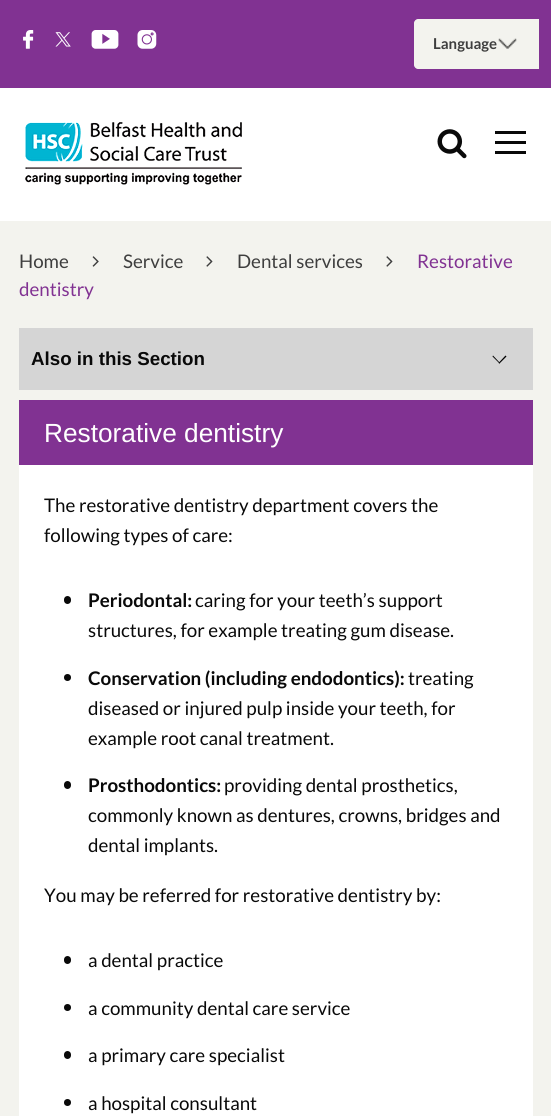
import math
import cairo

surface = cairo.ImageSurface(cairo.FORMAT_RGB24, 551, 1116)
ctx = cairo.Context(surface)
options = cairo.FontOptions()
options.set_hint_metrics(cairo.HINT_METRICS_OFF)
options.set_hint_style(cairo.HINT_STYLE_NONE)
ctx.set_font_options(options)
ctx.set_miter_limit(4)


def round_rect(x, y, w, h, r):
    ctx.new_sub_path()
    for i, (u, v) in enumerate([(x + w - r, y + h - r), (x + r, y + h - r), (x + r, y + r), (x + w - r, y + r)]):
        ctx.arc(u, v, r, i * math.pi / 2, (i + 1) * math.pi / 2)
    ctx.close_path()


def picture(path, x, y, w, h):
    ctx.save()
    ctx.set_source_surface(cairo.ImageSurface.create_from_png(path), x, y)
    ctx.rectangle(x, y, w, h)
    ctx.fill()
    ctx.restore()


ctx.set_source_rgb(0.953, 0.953, 0.933)
ctx.paint()
ctx.set_source_rgb(1, 1, 1)
ctx.rectangle(0, 88, 551, 133)
ctx.fill()
ctx.set_source_rgb(0.506, 0.196, 0.573)
ctx.rectangle(0, 0, 551, 88)
ctx.fill()
picture("img1.png", 23, 30, 11, 19)
picture("img2.png", 55, 32, 16, 15)
picture("img3.png", 91, 30, 28, 19)
picture("img4.png", 137, 30, 20, 19)
ctx.set_source_rgb(0.953, 0.953, 0.933)
ctx.new_path()
ctx.move_to(418, 19)
ctx.line_to(539, 19)
ctx.line_to(539, 69)
ctx.line_to(418, 69)
ctx.curve_to(416, 69, 414, 67, 414, 65)
ctx.line_to(414, 23)
ctx.curve_to(414, 21, 416, 19, 418, 19)
ctx.close_path()
ctx.fill()
ctx.select_font_face("Lato", cairo.FONT_SLANT_NORMAL, cairo.FONT_WEIGHT_BOLD)
ctx.set_font_size(15)
ctx.set_source_rgb(0.243, 0.243, 0.243)
ctx.move_to(433, 49)
ctx.show_text("Language")
picture("img5.png", 498, 38, 19, 11)
picture("img6.png", 25, 122, 217, 63)
picture("img7.png", 437, 129, 30, 30)
ctx.set_source_rgb(0.039, 0.039, 0.039)
ctx.rectangle(495, 131, 31, 3)
ctx.fill()
ctx.rectangle(495, 141, 31, 3)
ctx.fill()
ctx.rectangle(495, 151, 31, 3)
ctx.fill()
ctx.select_font_face("Lato")
ctx.set_font_size(18.75)
ctx.set_source_rgb(0.243, 0.243, 0.243)
ctx.move_to(19, 268)
ctx.show_text("Home")
picture("img8.png", 92, 256, 7, 11)
ctx.move_to(123, 268)
ctx.show_text("Service")
picture("img9.png", 206, 256, 7, 11)
ctx.move_to(237, 268)
ctx.show_text("Dental services")
picture("img9.png", 386, 256, 7, 11)
ctx.set_source_rgb(0.506, 0.196, 0.573)
ctx.move_to(417, 268)
ctx.show_text("Restorative")
ctx.move_to(19, 296)
ctx.show_text("dentistry")
ctx.set_source_rgb(0.835, 0.835, 0.835)
ctx.rectangle(19, 328, 514, 62)
ctx.fill()
ctx.select_font_face("Liberation Sans", cairo.FONT_SLANT_NORMAL, cairo.FONT_WEIGHT_BOLD)
ctx.set_source_rgb(0.039, 0.039, 0.039)
ctx.move_to(31, 365)
ctx.show_text("Also in this Section")
ctx.set_source_rgb(0, 0, 0)
ctx.new_path()
ctx.move_to(493, 355.5)
ctx.line_to(500, 363)
ctx.line_to(499.5, 363.5)
ctx.line_to(492.5, 356.5)
ctx.close_path()
ctx.fill()
ctx.new_path()
ctx.move_to(498.5, 363)
ctx.line_to(505.5, 355.5)
ctx.line_to(506.5, 356.5)
ctx.line_to(499.5, 363.5)
ctx.close_path()
ctx.fill()
ctx.set_source_rgb(0.506, 0.196, 0.573)
ctx.rectangle(19, 400, 514, 65)
ctx.fill()
ctx.select_font_face("Liberation Sans")
ctx.set_font_size(26.25)
ctx.set_source_rgb(1, 1, 1)
ctx.move_to(44, 442)
ctx.show_text("Restorative dentistry")
ctx.rectangle(19, 465, 514, 651)
ctx.fill()
ctx.select_font_face("Lato")
ctx.set_font_size(18.75)
ctx.set_source_rgb(0.039, 0.039, 0.039)
ctx.move_to(44, 512)
ctx.show_text("The restorative dentistry department covers the")
ctx.move_to(44, 542)
ctx.show_text("following types of care:")
round_rect(64, 596, 7, 8, 3.5)
ctx.fill()
ctx.select_font_face("Lato", cairo.FONT_SLANT_NORMAL, cairo.FONT_WEIGHT_BOLD)
ctx.move_to(88, 607)
ctx.show_text("Periodontal:")
ctx.select_font_face("Lato")
ctx.move_to(195, 607)
ctx.show_text("caring for your teeth’s support")
ctx.move_to(88, 637)
ctx.show_text("structures, for example treating gum disease.")
ctx.new_path()
ctx.arc(67.5, 677.5, 3.5, 0, 2 * math.pi)
ctx.fill()
ctx.select_font_face("Lato", cairo.FONT_SLANT_NORMAL, cairo.FONT_WEIGHT_BOLD)
ctx.move_to(88, 685)
ctx.show_text("Conservation (including endodontics):")
ctx.select_font_face("Lato")
ctx.move_to(408, 685)
ctx.show_text("treating")
ctx.move_to(88, 715)
ctx.show_text("diseased or injured pulp inside your teeth, for")
ctx.move_to(88, 745)
ctx.show_text("example root canal treatment.")
round_rect(64, 781, 7, 8, 3.5)
ctx.fill()
ctx.select_font_face("Lato", cairo.FONT_SLANT_NORMAL, cairo.FONT_WEIGHT_BOLD)
ctx.move_to(88, 792)
ctx.show_text("Prosthodontics:")
ctx.select_font_face("Lato")
ctx.move_to(224, 792)
ctx.show_text("providing dental prosthetics,")
ctx.move_to(88, 822)
ctx.show_text("commonly known as dentures, crowns, bridges and")
ctx.move_to(88, 852)
ctx.show_text("dental implants.")
ctx.move_to(44, 902)
ctx.show_text("You may be referred for restorative dentistry by:")
round_rect(64, 956, 7, 8, 3.5)
ctx.fill()
ctx.move_to(88, 967)
ctx.show_text("a dental practice")
ctx.new_path()
ctx.arc(67.5, 1007.5, 3.5, 0, 2 * math.pi)
ctx.fill()
ctx.move_to(88, 1015)
ctx.show_text("a community dental care service")
round_rect(64, 1051, 7, 8, 3.5)
ctx.fill()
ctx.move_to(88, 1062)
ctx.show_text("a primary care specialist")
ctx.new_path()
ctx.arc(67.5, 1102.5, 3.5, 0, 2 * math.pi)
ctx.fill()
ctx.move_to(88, 1110)
ctx.show_text("a hospital consultant")
surface.write_to_png("page.png")
